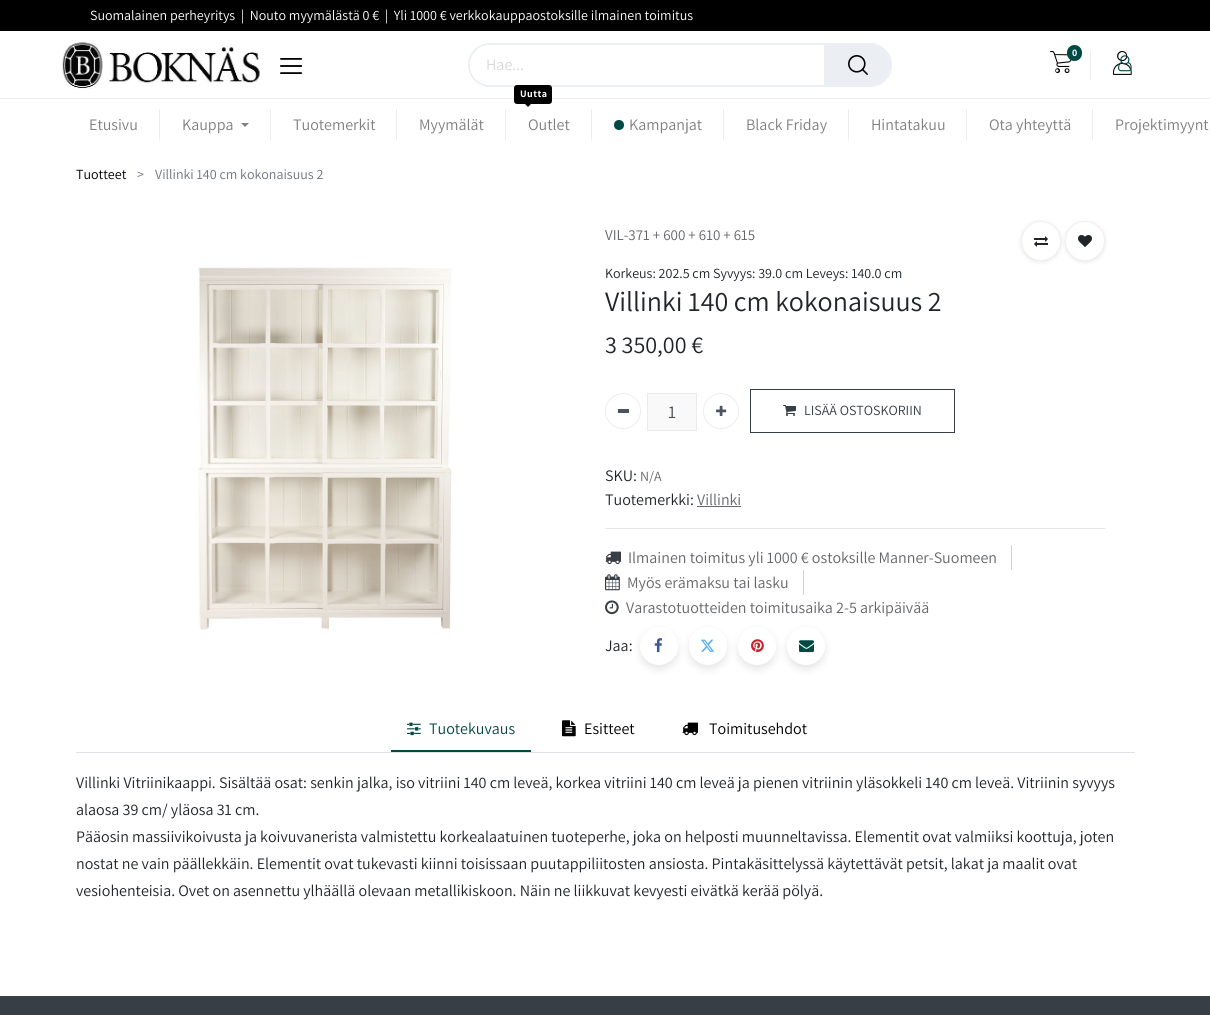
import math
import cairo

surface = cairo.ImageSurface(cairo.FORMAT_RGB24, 1210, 1015)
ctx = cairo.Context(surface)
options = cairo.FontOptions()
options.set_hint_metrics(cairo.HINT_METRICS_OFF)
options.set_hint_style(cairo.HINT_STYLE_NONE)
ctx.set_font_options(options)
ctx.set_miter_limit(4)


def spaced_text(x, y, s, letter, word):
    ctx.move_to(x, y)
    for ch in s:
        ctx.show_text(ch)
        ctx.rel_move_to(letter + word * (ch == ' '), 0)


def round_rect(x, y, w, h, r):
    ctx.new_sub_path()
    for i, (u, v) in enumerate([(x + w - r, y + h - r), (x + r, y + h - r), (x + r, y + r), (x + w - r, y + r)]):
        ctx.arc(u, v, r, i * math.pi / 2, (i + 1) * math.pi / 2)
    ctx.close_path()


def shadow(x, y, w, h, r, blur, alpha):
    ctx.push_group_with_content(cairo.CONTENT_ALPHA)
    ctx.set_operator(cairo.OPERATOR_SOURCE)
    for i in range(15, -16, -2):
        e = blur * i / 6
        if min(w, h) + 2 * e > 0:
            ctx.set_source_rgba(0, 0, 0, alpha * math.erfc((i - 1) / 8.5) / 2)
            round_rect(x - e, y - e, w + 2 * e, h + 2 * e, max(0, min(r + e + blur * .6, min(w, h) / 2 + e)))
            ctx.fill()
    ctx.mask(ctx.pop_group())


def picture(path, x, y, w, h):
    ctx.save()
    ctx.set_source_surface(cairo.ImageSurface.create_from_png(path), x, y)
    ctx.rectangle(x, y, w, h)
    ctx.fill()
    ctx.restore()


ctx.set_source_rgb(1, 1, 1)
ctx.paint()
ctx.set_source_rgb(0, 0, 0)
ctx.rectangle(0, 0, 1210, 31)
ctx.fill()
ctx.select_font_face("Assistant")
ctx.set_font_size(14)
ctx.set_source_rgb(1, 1, 1)
ctx.move_to(90, 20)
ctx.show_text("Suomalainen perheyritys  |  Nouto myymälästä 0 €  |  Yli 1000 € verkkokauppaostoksille ilmainen toimitus")
picture("img1.png", 62, 41, 198, 48)
picture("img2.png", 280, 58, 22, 16)
ctx.set_source_rgb(0.929, 0.929, 0.929)
ctx.rectangle(1090, 51, 1, 29)
ctx.fill()
picture("img3.png", 1050, 51, 22, 22)
ctx.set_source_rgb(0, 0.29, 0.263)
round_rect(1067, 45, 15, 16, 7.5)
ctx.fill()
ctx.select_font_face("Assistant", cairo.FONT_SLANT_NORMAL, cairo.FONT_WEIGHT_BOLD)
ctx.set_font_size(10)
ctx.set_source_rgb(1, 1, 1)
ctx.move_to(1072, 56)
ctx.show_text("0")
picture("img4.png", 1113, 51, 19, 24)
picture("img5.png", 1118, 55, 14, 17)
round_rect(469, 44, 422, 42, 21)
ctx.set_source_rgb(0.918, 0.937, 0.953)
ctx.stroke()
ctx.set_source_rgb(1, 1, 1)
round_rect(470, 45, 421, 40, 20)
ctx.fill()
ctx.select_font_face("Assistant")
ctx.set_font_size(16)
ctx.set_source_rgb(0.847, 0.847, 0.847)
ctx.move_to(486, 70)
ctx.show_text("Hae...")
ctx.set_source_rgb(0.918, 0.937, 0.953)
ctx.new_path()
ctx.move_to(824, 45)
ctx.line_to(872, 45)
ctx.curve_to(883, 45, 892, 54, 892, 65)
ctx.curve_to(892, 76, 883, 85, 872, 85)
ctx.line_to(824, 85)
ctx.close_path()
ctx.fill()
picture("img6.png", 848, 55, 20, 20)
ctx.set_source_rgb(0.929, 0.929, 0.929)
ctx.rectangle(0, 98, 1210, 1)
ctx.fill()
ctx.set_source_rgb(0.502, 0.502, 0.502)
ctx.move_to(89, 130)
ctx.show_text("Etusivu")
ctx.set_source_rgb(0.929, 0.929, 0.929)
ctx.rectangle(159, 109, 1, 31)
ctx.fill()
ctx.set_source_rgb(0.502, 0.502, 0.502)
ctx.move_to(182, 130)
ctx.show_text("Kauppa")
ctx.new_path()
ctx.move_to(241, 123)
ctx.line_to(249, 123)
ctx.line_to(245, 127)
ctx.close_path()
ctx.fill()
ctx.set_source_rgb(0.929, 0.929, 0.929)
ctx.rectangle(270, 109, 1, 31)
ctx.fill()
ctx.set_source_rgb(0.502, 0.502, 0.502)
ctx.move_to(293, 130)
ctx.show_text("Tuotemerkit")
ctx.set_source_rgb(0.929, 0.929, 0.929)
ctx.rectangle(396, 109, 1, 31)
ctx.fill()
ctx.set_source_rgb(0.502, 0.502, 0.502)
ctx.move_to(419, 130)
ctx.show_text("Myymälät")
ctx.set_source_rgb(0.929, 0.929, 0.929)
ctx.rectangle(505, 109, 1, 31)
ctx.fill()
ctx.set_source_rgb(0, 0, 0)
round_rect(514, 85, 38, 19, 3)
ctx.fill()
ctx.select_font_face("Assistant", cairo.FONT_SLANT_NORMAL, cairo.FONT_WEIGHT_BOLD)
ctx.set_font_size(10)
ctx.set_source_rgb(1, 1, 1)
spaced_text(520, 97, "Uutta", 0.5, 0)
ctx.set_source_rgb(0, 0, 0)
ctx.new_path()
ctx.move_to(524, 103)
ctx.line_to(532, 103)
ctx.line_to(528, 107)
ctx.close_path()
ctx.fill()
ctx.select_font_face("Assistant")
ctx.set_font_size(16)
ctx.set_source_rgb(0.502, 0.502, 0.502)
ctx.move_to(528, 130)
ctx.show_text("Outlet")
ctx.set_source_rgb(0.929, 0.929, 0.929)
ctx.rectangle(591, 109, 1, 31)
ctx.fill()
ctx.set_source_rgb(0, 0.29, 0.263)
ctx.arc(619, 125, 5, 0, 2 * math.pi)
ctx.fill()
ctx.set_source_rgb(0.502, 0.502, 0.502)
ctx.move_to(629, 130)
ctx.show_text("Kampanjat")
ctx.set_source_rgb(0.929, 0.929, 0.929)
ctx.rectangle(723, 109, 1, 31)
ctx.fill()
ctx.set_source_rgb(0.502, 0.502, 0.502)
ctx.move_to(746, 130)
ctx.show_text("Black Friday")
ctx.set_source_rgb(0.929, 0.929, 0.929)
ctx.rectangle(848, 109, 1, 31)
ctx.fill()
ctx.set_source_rgb(0.502, 0.502, 0.502)
ctx.move_to(871, 130)
ctx.show_text("Hintatakuu")
ctx.set_source_rgb(0.929, 0.929, 0.929)
ctx.rectangle(966, 109, 1, 31)
ctx.fill()
ctx.set_source_rgb(0.502, 0.502, 0.502)
ctx.move_to(989, 130)
ctx.show_text("Ota yhteyttä")
ctx.set_source_rgb(0.929, 0.929, 0.929)
ctx.rectangle(1092, 109, 1, 31)
ctx.fill()
ctx.set_source_rgb(0.502, 0.502, 0.502)
ctx.move_to(1115, 130)
ctx.show_text("Projektimyynt")
ctx.set_font_size(14)
ctx.set_source_rgb(0, 0, 0)
ctx.move_to(76, 179)
ctx.show_text("Tuotteet")
ctx.set_source_rgb(0.424, 0.459, 0.49)
ctx.move_to(137, 179)
ctx.show_text(">")
ctx.move_to(155, 179)
ctx.show_text("Villinki 140 cm kokonaisuus 2")
picture("img7.png", 197, 267, 256, 363)
ctx.set_font_size(15)
ctx.set_source_rgb(0.392, 0.4, 0.412)
ctx.move_to(605, 240)
ctx.show_text("VIL-371 + 600 + 610 + 615")
ctx.set_source_rgb(0, 0, 0)
shadow(1021, 222, 40, 40, 20, 2, 0.1)
ctx.set_source_rgb(1, 1, 1)
ctx.arc(1041, 241, 19.5, 0, 2 * math.pi)
ctx.fill_preserve()
ctx.set_source_rgb(0.941, 0.941, 0.941)
ctx.set_line_width(1)
ctx.stroke()
picture("img8.png", 1034, 236, 14, 11)
ctx.set_source_rgb(0, 0, 0)
shadow(1065, 222, 40, 40, 20, 2, 0.1)
ctx.set_source_rgb(1, 1, 1)
ctx.arc(1085, 241, 19.5, 0, 2 * math.pi)
ctx.fill_preserve()
ctx.set_source_rgb(0.941, 0.941, 0.941)
ctx.stroke()
picture("img9.png", 1078, 235, 14, 12)
ctx.set_font_size(14)
ctx.set_source_rgb(0.129, 0.145, 0.161)
ctx.move_to(605, 278)
ctx.show_text("Korkeus: 202.5 cm Syvyys: 39.0 cm Leveys: 140.0 cm")
ctx.set_font_size(28)
ctx.move_to(605, 311)
ctx.show_text("Villinki 140 cm kokonaisuus 2")
ctx.set_font_size(24)
ctx.move_to(605, 353)
ctx.show_text("3 350,00 €")
ctx.new_path()
ctx.arc(623, 411, 17.5, 0, 2 * math.pi)
ctx.set_source_rgb(0.929, 0.929, 0.929)
ctx.stroke()
ctx.set_source_rgb(0.298, 0.329, 0.384)
ctx.rectangle(618, 409, 11, 4)
ctx.fill()
ctx.set_source_rgb(0.973, 0.976, 0.98)
ctx.rectangle(647.5, 393.5, 49, 37)
ctx.fill_preserve()
ctx.set_source_rgb(0.914, 0.925, 0.937)
ctx.stroke()
ctx.set_font_size(18)
ctx.set_source_rgb(0.286, 0.314, 0.341)
ctx.move_to(668, 418)
ctx.show_text("1")
ctx.new_path()
ctx.arc(721, 411, 17.5, 0, 2 * math.pi)
ctx.set_source_rgb(0.929, 0.929, 0.929)
ctx.stroke()
picture("img10.png", 716, 405, 11, 11)
ctx.rectangle(750.5, 389.5, 204, 43)
ctx.set_source_rgb(0.22, 0.243, 0.271)
ctx.stroke()
picture("img11.png", 783, 405, 13, 11)
ctx.set_font_size(14)
ctx.move_to(804, 415)
ctx.show_text("LISÄÄ OSTOSKORIIN")
ctx.set_font_size(16)
ctx.set_source_rgb(0.129, 0.145, 0.161)
ctx.move_to(605, 481)
ctx.show_text("SKU:")
ctx.set_font_size(14)
ctx.set_source_rgb(0.392, 0.4, 0.412)
ctx.move_to(640, 481)
ctx.show_text("N/A")
ctx.set_font_size(16)
ctx.set_source_rgb(0.129, 0.145, 0.161)
ctx.move_to(605, 505)
ctx.show_text("Tuotemerkki:")
ctx.set_source_rgb(0.392, 0.4, 0.412)
ctx.move_to(697, 505)
ctx.show_text("Villinki")
ctx.rectangle(697, 506, 44, 1)
ctx.fill()
ctx.set_source_rgb(0.902, 0.902, 0.902)
ctx.rectangle(605, 528, 500, 1)
ctx.fill()
ctx.set_source_rgb(0.827, 0.827, 0.827)
ctx.rectangle(1011, 545, 1, 25)
ctx.fill()
picture("img12.png", 605, 551, 16, 14)
ctx.set_source_rgb(0.392, 0.4, 0.412)
ctx.move_to(628, 563)
ctx.show_text("Ilmainen toimitus yli 1000 € ostoksille Manner-Suomeen")
ctx.set_source_rgb(0.827, 0.827, 0.827)
ctx.rectangle(803, 570, 1, 25)
ctx.fill()
picture("img13.png", 605, 574, 15, 17)
ctx.set_source_rgb(0.392, 0.4, 0.412)
ctx.move_to(627, 588)
ctx.show_text("Myös erämaksu tai lasku")
picture("img14.png", 605, 600, 14, 15)
ctx.move_to(626, 613)
ctx.show_text("Varastotuotteiden toimitusaika 2-5 arkipäivää")
ctx.set_source_rgb(0.129, 0.145, 0.161)
ctx.move_to(605, 651)
ctx.show_text("Jaa:")
ctx.set_source_rgb(0, 0, 0)
shadow(640, 631, 38, 38, 19, 4, 0.1)
ctx.set_source_rgb(1, 1, 1)
ctx.arc(659, 646, 19, 0, 2 * math.pi)
ctx.fill()
picture("img15.png", 654, 638, 9, 15)
ctx.set_source_rgb(0, 0, 0)
shadow(689, 631, 38, 38, 19, 4, 0.1)
ctx.set_source_rgb(1, 1, 1)
ctx.arc(708, 646, 19, 0, 2 * math.pi)
ctx.fill()
picture("img16.png", 700, 639, 14, 13)
ctx.set_source_rgb(0, 0, 0)
shadow(738, 631, 38, 38, 19, 4, 0.1)
ctx.set_source_rgb(1, 1, 1)
ctx.arc(757, 646, 19, 0, 2 * math.pi)
ctx.fill()
picture("img17.png", 751, 639, 13, 14)
ctx.set_source_rgb(0, 0, 0)
shadow(787, 631, 38, 38, 19, 4, 0.1)
ctx.set_source_rgb(1, 1, 1)
ctx.arc(806, 646, 19, 0, 2 * math.pi)
ctx.fill()
picture("img18.png", 799, 640, 15, 13)
ctx.set_source_rgb(0.871, 0.886, 0.902)
ctx.rectangle(76, 752, 1059, 1)
ctx.fill()
ctx.set_source_rgb(0, 0.29, 0.263)
ctx.rectangle(391, 750, 140, 2)
ctx.fill()
picture("img19.png", 407, 722, 14, 14)
ctx.move_to(429, 734)
ctx.show_text("Tuotekuvaus")
picture("img20.png", 562, 720, 14, 17)
ctx.set_source_rgb(0, 0, 0)
ctx.move_to(584, 734)
ctx.show_text("Esitteet")
picture("img21.png", 682, 722, 16, 14)
ctx.move_to(709, 734)
ctx.show_text("Toimitusehdot")
ctx.set_source_rgb(0.129, 0.145, 0.161)
ctx.move_to(76, 788)
ctx.show_text("Villinki Vitriinikaappi. Sisältää osat: senkin jalka, iso vitriini 140 cm leveä, korkea vitriini 140 cm leveä ja pienen vitriinin yläsokkeli 140 cm leveä. Vitriinin syvyys")
ctx.move_to(76, 815)
ctx.show_text("alaosa 39 cm/ yläosa 31 cm.")
ctx.move_to(76, 842)
ctx.show_text("Pääosin massiivikoivusta ja koivuvanerista valmistettu korkealaatuinen tuoteperhe, joka on helposti muunneltavissa. Elementit ovat valmiiksi koottuja, joten")
ctx.move_to(76, 869)
ctx.show_text("nostat ne vain päällekkäin. Elementit ovat tukevasti kiinni toisissaan puutappiliitosten ansiosta. Pintakäsittelyssä käytettävät petsit, lakat ja maalit ovat")
ctx.move_to(76, 896)
ctx.show_text("vesiohenteisia. Ovet on asennettu ylhäällä olevaan metallikiskoon. Näin ne liikkuvat kevyesti eivätkä kerää pölyä.")
ctx.set_source_rgb(0.22, 0.243, 0.271)
ctx.rectangle(0, 996, 1210, 19)
ctx.fill()
surface.write_to_png("page.png")
